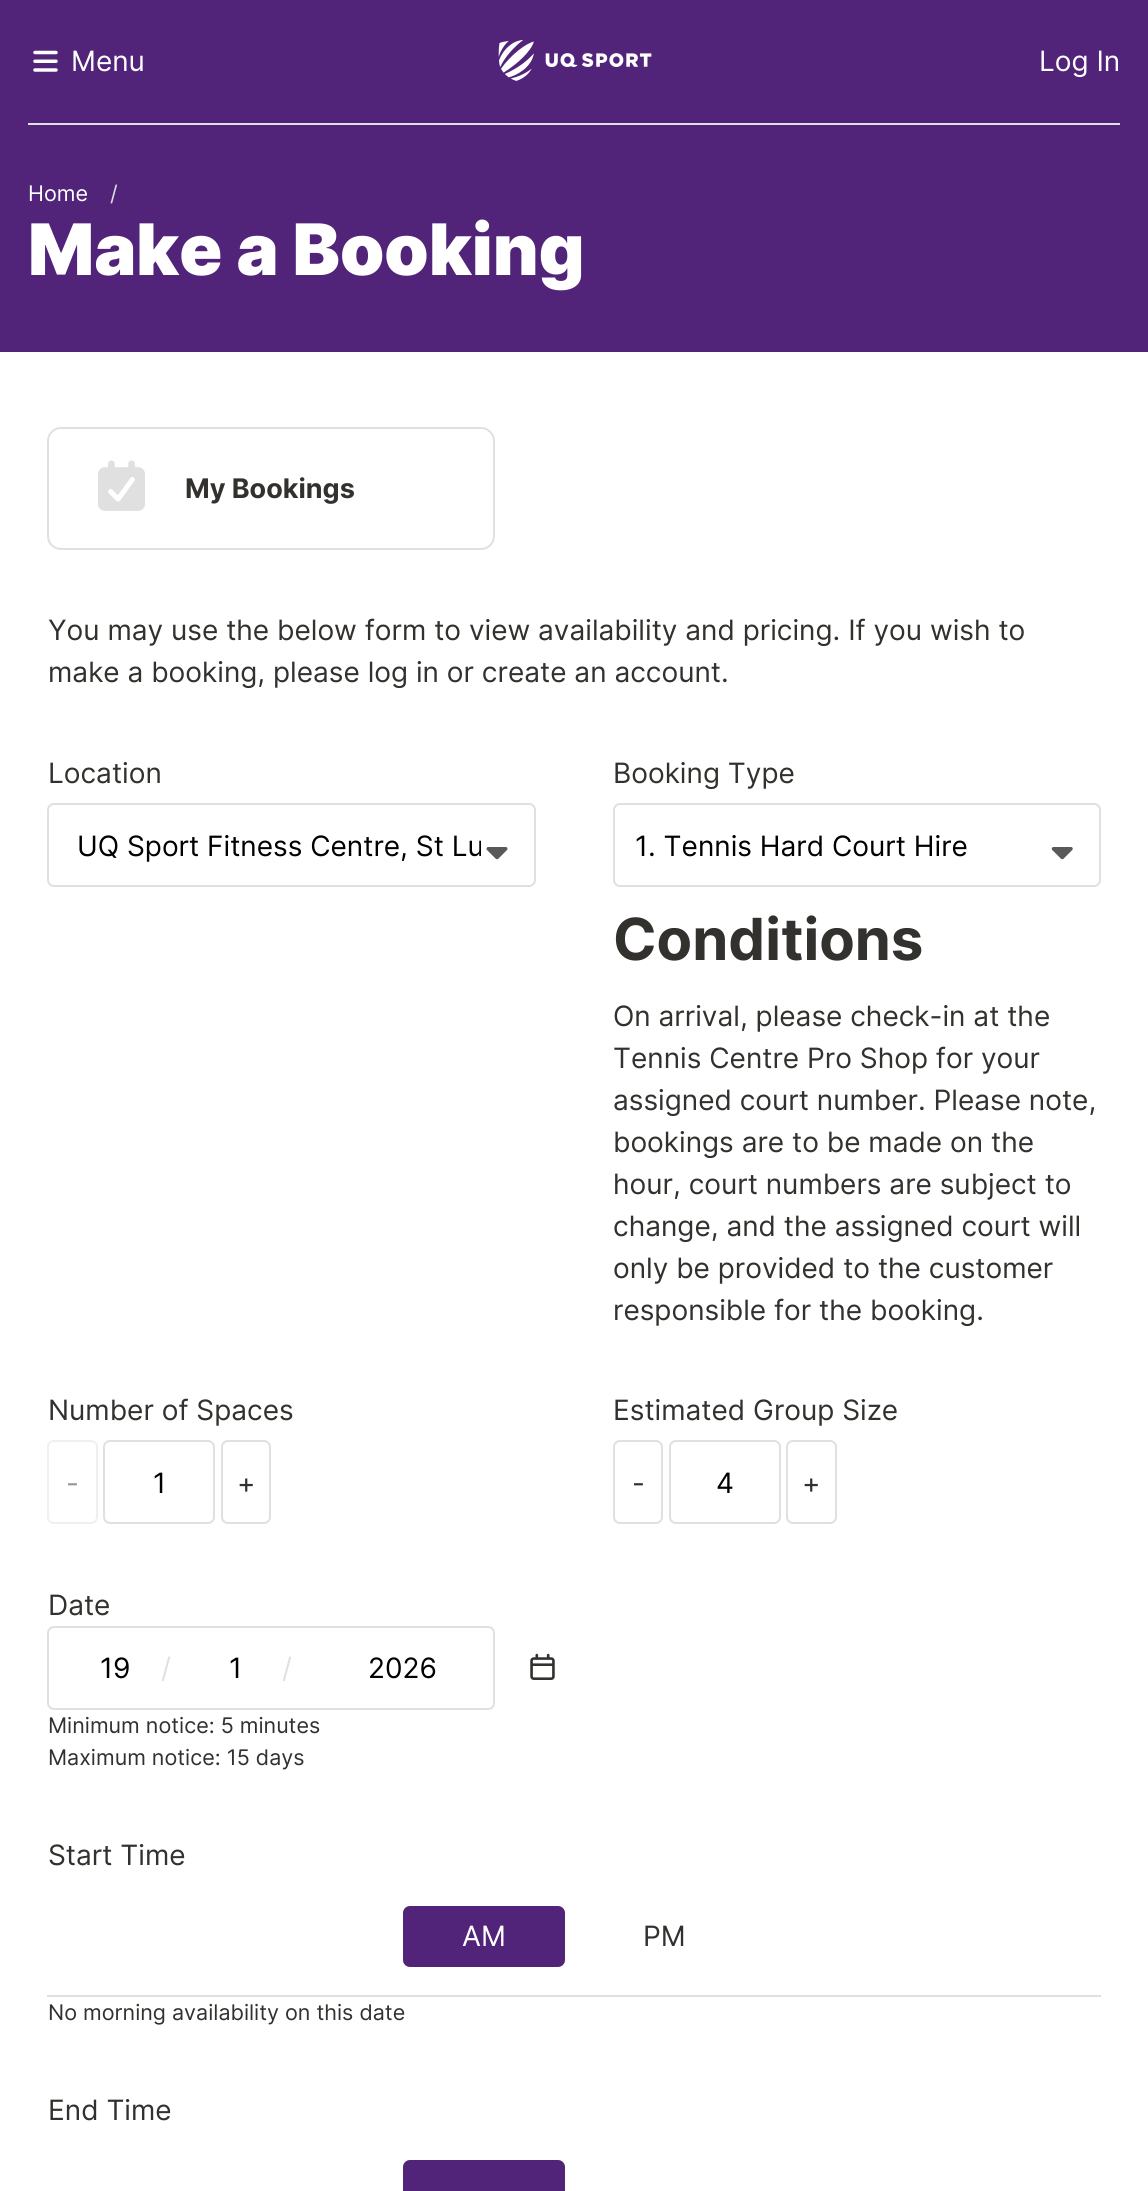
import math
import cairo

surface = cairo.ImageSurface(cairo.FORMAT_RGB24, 1148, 2191)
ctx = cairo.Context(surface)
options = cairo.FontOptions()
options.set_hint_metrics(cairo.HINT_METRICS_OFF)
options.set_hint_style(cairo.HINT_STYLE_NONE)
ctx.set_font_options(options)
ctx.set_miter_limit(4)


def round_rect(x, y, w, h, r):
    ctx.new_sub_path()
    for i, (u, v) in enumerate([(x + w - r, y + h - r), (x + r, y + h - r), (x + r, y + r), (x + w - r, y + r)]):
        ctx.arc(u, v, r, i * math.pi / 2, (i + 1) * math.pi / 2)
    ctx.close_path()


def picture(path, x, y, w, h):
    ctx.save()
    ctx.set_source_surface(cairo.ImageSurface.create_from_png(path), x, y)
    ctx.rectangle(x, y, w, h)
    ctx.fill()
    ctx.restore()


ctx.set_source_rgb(0.318, 0.141, 0.478)
ctx.paint()
ctx.set_source_rgb(0.878, 0.878, 0.878)
ctx.rectangle(28, 123, 1092, 2)
ctx.fill()
picture("img1.png", 33, 50, 25, 22)
ctx.select_font_face("Inter")
ctx.set_font_size(28)
ctx.set_source_rgb(1, 1, 1)
ctx.move_to(71, 71)
ctx.show_text("Menu")
picture("img2.png", 498, 40, 154, 41)
ctx.move_to(1039, 71)
ctx.show_text("Log In")
ctx.set_font_size(21.5)
ctx.move_to(28, 201)
ctx.show_text("Home")
ctx.set_source_rgb(0.878, 0.878, 0.878)
ctx.move_to(110, 201)
ctx.show_text("/")
ctx.select_font_face("Inter Black")
ctx.set_font_size(71)
ctx.set_source_rgb(1, 1, 1)
ctx.move_to(28, 275)
ctx.show_text("Make a Booking")
ctx.rectangle(0, 352, 1148, 1839)
ctx.fill()
round_rect(48, 428, 446, 121, 13)
ctx.set_source_rgb(0.878, 0.878, 0.878)
ctx.stroke()
picture("img3.png", 98, 460, 47, 51)
ctx.select_font_face("Inter", cairo.FONT_SLANT_NORMAL, cairo.FONT_WEIGHT_BOLD)
ctx.set_font_size(27)
ctx.set_source_rgb(0.2, 0.192, 0.18)
ctx.move_to(185, 498)
ctx.show_text("My Bookings")
ctx.select_font_face("Inter")
ctx.set_font_size(28)
ctx.move_to(48, 640)
ctx.show_text("You may use the below form to view availability and pricing. If you wish to")
ctx.move_to(48, 682)
ctx.show_text("make a booking, please log in or create an account.")
ctx.move_to(48, 783)
ctx.show_text("Location")
round_rect(48, 804, 487, 82, 6)
ctx.set_source_rgb(0.878, 0.878, 0.878)
ctx.stroke()
ctx.save()
ctx.rectangle(70, 824, 411, 42)
ctx.clip()
ctx.set_source_rgb(0, 0, 0)
ctx.move_to(77, 856)
ctx.show_text("UQ Sport Fitness Centre, St Lu")
ctx.restore()
picture("img4.png", 486, 847, 22, 13)
ctx.set_source_rgb(0.2, 0.192, 0.18)
ctx.move_to(613, 783)
ctx.show_text("Booking Type")
round_rect(614, 804, 486, 82, 6)
ctx.set_source_rgb(0.878, 0.878, 0.878)
ctx.stroke()
ctx.set_source_rgb(0, 0, 0)
ctx.move_to(635, 856)
ctx.show_text("1. Tennis Hard Court Hire")
picture("img5.png", 1051, 847, 22, 13)
ctx.select_font_face("Inter", cairo.FONT_SLANT_NORMAL, cairo.FONT_WEIGHT_BOLD)
ctx.set_font_size(58)
ctx.set_source_rgb(0.2, 0.192, 0.18)
ctx.move_to(613, 960)
ctx.show_text("Conditions")
ctx.select_font_face("Inter")
ctx.set_font_size(28)
ctx.move_to(613, 1026)
ctx.show_text("On arrival, please check-in at the")
ctx.move_to(613, 1068)
ctx.show_text("Tennis Centre Pro Shop for your")
ctx.move_to(613, 1110)
ctx.show_text("assigned court number. Please note,")
ctx.move_to(613, 1152)
ctx.show_text("bookings are to be made on the")
ctx.move_to(613, 1194)
ctx.show_text("hour, court numbers are subject to")
ctx.move_to(613, 1236)
ctx.show_text("change, and the assigned court will")
ctx.move_to(613, 1278)
ctx.show_text("only be provided to the customer")
ctx.move_to(613, 1320)
ctx.show_text("responsible for the booking.")
ctx.move_to(48, 1420)
ctx.show_text("Number of Spaces")
round_rect(48, 1441, 49, 82, 6)
ctx.set_source_rgb(0.941, 0.941, 0.941)
ctx.stroke()
ctx.set_source_rgb(0.6, 0.596, 0.592)
ctx.move_to(66, 1493)
ctx.show_text("-")
round_rect(104, 1441, 110, 82, 6)
ctx.set_source_rgb(0.878, 0.878, 0.878)
ctx.stroke()
ctx.set_source_rgb(0, 0, 0)
ctx.move_to(153, 1493)
ctx.show_text("1")
round_rect(222, 1441, 48, 82, 6)
ctx.set_source_rgb(0.878, 0.878, 0.878)
ctx.stroke()
ctx.set_source_rgb(0.2, 0.192, 0.18)
ctx.move_to(237, 1493)
ctx.show_text("+")
ctx.move_to(613, 1420)
ctx.show_text("Estimated Group Size")
round_rect(614, 1441, 48, 82, 6)
ctx.set_source_rgb(0.878, 0.878, 0.878)
ctx.stroke()
ctx.set_source_rgb(0.2, 0.192, 0.18)
ctx.move_to(632, 1493)
ctx.show_text("-")
round_rect(670, 1441, 110, 82, 6)
ctx.set_source_rgb(0.878, 0.878, 0.878)
ctx.stroke()
ctx.set_source_rgb(0, 0, 0)
ctx.move_to(716, 1493)
ctx.show_text("4")
round_rect(787, 1441, 49, 82, 6)
ctx.set_source_rgb(0.878, 0.878, 0.878)
ctx.stroke()
ctx.set_source_rgb(0.2, 0.192, 0.18)
ctx.move_to(802, 1493)
ctx.show_text("+")
ctx.move_to(48, 1615)
ctx.show_text("Date")
round_rect(48, 1627, 446, 82, 6)
ctx.set_source_rgb(0.878, 0.878, 0.878)
ctx.stroke()
ctx.set_source_rgb(0, 0, 0)
ctx.move_to(100, 1678)
ctx.show_text("19")
ctx.set_source_rgb(0.878, 0.878, 0.878)
ctx.move_to(161, 1678)
ctx.show_text("/")
ctx.set_source_rgb(0, 0, 0)
ctx.move_to(229, 1678)
ctx.show_text("1")
ctx.set_source_rgb(0.878, 0.878, 0.878)
ctx.move_to(282, 1678)
ctx.show_text("/")
ctx.set_source_rgb(0, 0, 0)
ctx.move_to(368, 1678)
ctx.show_text("2026")
picture("img6.png", 530, 1653, 25, 27)
ctx.set_font_size(21.5)
ctx.set_source_rgb(0.2, 0.192, 0.18)
ctx.move_to(48, 1733)
ctx.show_text("Minimum notice: 5 minutes")
ctx.move_to(48, 1765)
ctx.show_text("Maximum notice: 15 days")
ctx.set_font_size(28)
ctx.move_to(48, 1865)
ctx.show_text("Start Time")
ctx.set_source_rgb(0.878, 0.878, 0.878)
ctx.rectangle(47, 1995, 1054, 2)
ctx.fill()
ctx.set_source_rgb(0.318, 0.141, 0.478)
round_rect(403, 1906, 162, 61, 7)
ctx.fill()
ctx.set_source_rgb(1, 1, 1)
ctx.move_to(462, 1946)
ctx.show_text("AM")
ctx.set_source_rgb(0.2, 0.192, 0.18)
ctx.move_to(643, 1946)
ctx.show_text("PM")
ctx.set_font_size(21.5)
ctx.move_to(48, 2020)
ctx.show_text("No morning availability on this date")
ctx.set_font_size(28)
ctx.move_to(48, 2120)
ctx.show_text("End Time")
ctx.set_source_rgb(0.318, 0.141, 0.478)
round_rect(403, 2160, 162, 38, 7)
ctx.fill()
surface.write_to_png("page.png")
